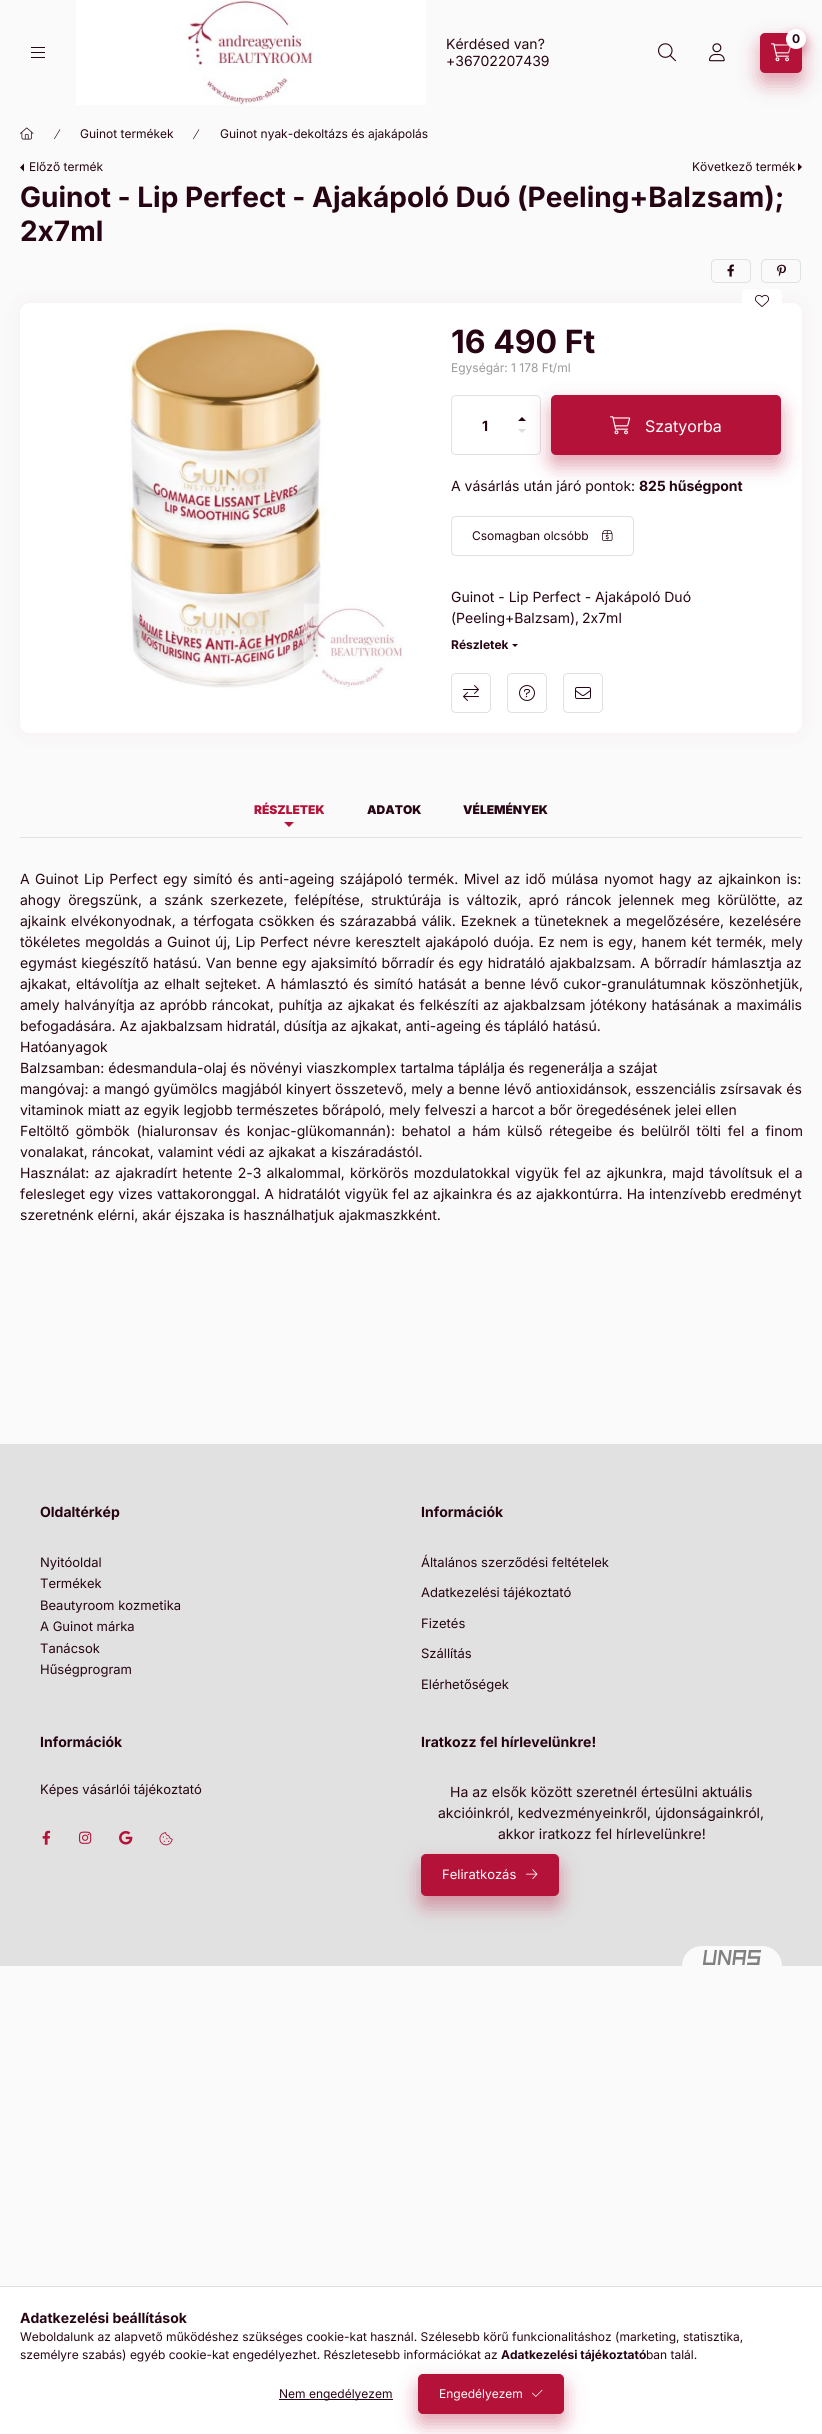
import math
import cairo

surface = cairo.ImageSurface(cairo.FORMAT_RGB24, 822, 2434)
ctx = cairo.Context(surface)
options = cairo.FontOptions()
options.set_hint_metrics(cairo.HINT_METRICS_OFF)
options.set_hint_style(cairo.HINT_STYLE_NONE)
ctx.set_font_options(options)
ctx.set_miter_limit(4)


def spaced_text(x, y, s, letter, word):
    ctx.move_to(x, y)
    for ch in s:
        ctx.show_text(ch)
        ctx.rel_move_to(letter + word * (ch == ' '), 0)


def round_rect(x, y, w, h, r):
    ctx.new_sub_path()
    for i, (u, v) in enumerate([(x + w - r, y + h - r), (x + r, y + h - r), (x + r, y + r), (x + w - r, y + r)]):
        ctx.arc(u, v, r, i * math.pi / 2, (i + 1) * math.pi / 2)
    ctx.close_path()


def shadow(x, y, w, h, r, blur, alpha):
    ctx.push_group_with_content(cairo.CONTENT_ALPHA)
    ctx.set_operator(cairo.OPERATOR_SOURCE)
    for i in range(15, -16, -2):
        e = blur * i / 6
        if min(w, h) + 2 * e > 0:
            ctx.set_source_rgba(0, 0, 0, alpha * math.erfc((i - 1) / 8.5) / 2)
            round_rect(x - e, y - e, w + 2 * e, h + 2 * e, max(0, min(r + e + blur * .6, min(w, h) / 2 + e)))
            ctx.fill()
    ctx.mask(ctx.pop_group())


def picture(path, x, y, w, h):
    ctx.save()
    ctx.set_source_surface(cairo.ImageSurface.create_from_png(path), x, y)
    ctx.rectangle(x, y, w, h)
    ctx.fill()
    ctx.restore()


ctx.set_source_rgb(0.98, 0.98, 0.98)
ctx.paint()
ctx.set_source_rgb(0.149, 0.016, 0.075)
ctx.rectangle(31, 47, 14, 1)
ctx.fill()
ctx.rectangle(31, 52, 14, 1)
ctx.fill()
ctx.rectangle(31, 57, 14, 1)
ctx.fill()
picture("img1.png", 76, 0, 350, 105)
ctx.select_font_face("Inter")
ctx.set_font_size(14)
ctx.move_to(446, 49)
ctx.show_text("Kérdésed van?")
ctx.move_to(446, 66)
ctx.show_text("+36702207439")
ctx.set_source_rgb(0.706, 0.071, 0.22)
shadow(760, 43, 42, 40, 5, 10, 0.4)
ctx.set_source_rgb(0.706, 0.071, 0.22)
round_rect(760, 33, 42, 40, 5)
ctx.fill()
picture("img2.png", 771, 43, 20, 19)
ctx.set_source_rgb(0.706, 0.071, 0.22)
shadow(786, 34, 20, 20, 10, 5, 0.4)
ctx.set_source_rgb(1, 1, 1)
ctx.arc(796, 39, 10, 0, 2 * math.pi)
ctx.fill()
ctx.select_font_face("Inter", cairo.FONT_SLANT_NORMAL, cairo.FONT_WEIGHT_BOLD)
ctx.set_font_size(12)
ctx.set_source_rgb(0.149, 0.016, 0.075)
ctx.move_to(792, 43)
ctx.show_text("0")
picture("img3.png", 658, 43, 18, 19)
picture("img4.png", 709, 43, 16, 19)
picture("img5.png", 20, 127, 14, 13)
picture("img6.png", 54, 129, 7, 11)
ctx.select_font_face("Inter")
ctx.move_to(80, 138)
ctx.show_text("Guinot termékek")
picture("img6.png", 193, 129, 7, 11)
ctx.move_to(220, 138)
ctx.show_text("Guinot nyak-dekoltázs és ajakápolás")
ctx.new_path()
ctx.move_to(24, 171.5)
ctx.line_to(24, 163.5)
ctx.line_to(20, 167.5)
ctx.close_path()
ctx.fill()
ctx.move_to(29, 171)
ctx.show_text("Előző termék")
ctx.move_to(692, 171)
ctx.show_text("Következő termék")
ctx.new_path()
ctx.move_to(798, 171)
ctx.line_to(798, 163)
ctx.line_to(802, 167)
ctx.close_path()
ctx.fill()
ctx.select_font_face("Inter", cairo.FONT_SLANT_NORMAL, cairo.FONT_WEIGHT_BOLD)
ctx.set_font_size(28)
ctx.move_to(20, 207)
ctx.show_text("Guinot - Lip Perfect - Ajakápoló Duó (Peeling+Balzsam);")
ctx.move_to(20, 241)
ctx.show_text("2x7ml")
round_rect(711.5, 259.5, 39, 23, 4.5)
ctx.set_source_rgb(0.882, 0.882, 0.882)
ctx.set_line_width(1)
ctx.stroke()
picture("img7.png", 727, 264, 7, 13)
round_rect(761.5, 259.5, 39, 23, 4.5)
ctx.stroke()
picture("img8.png", 777, 264, 9, 13)
ctx.set_source_rgb(0.706, 0.071, 0.22)
shadow(20, 303, 782, 430, 10, 10, 0.05)
ctx.set_source_rgb(1, 1, 1)
round_rect(20, 303, 782, 430, 10)
ctx.fill()
round_rect(742, 289, 40, 24, 5)
ctx.fill()
picture("img9.png", 755, 294, 14, 13)
picture("img10.png", 125, 323, 280, 367)
ctx.set_font_size(32)
ctx.set_source_rgb(0.149, 0.016, 0.075)
ctx.move_to(451, 353)
ctx.show_text("16 490 Ft")
ctx.select_font_face("Inter")
ctx.set_font_size(12)
ctx.set_source_rgb(0.6, 0.6, 0.6)
ctx.move_to(451, 372)
ctx.show_text("Egységár: 1 178 Ft/ml")
round_rect(451.5, 395.5, 89, 59, 4.5)
ctx.set_source_rgb(0.882, 0.882, 0.882)
ctx.stroke()
ctx.select_font_face("Inter", cairo.FONT_SLANT_NORMAL, cairo.FONT_WEIGHT_BOLD)
ctx.set_font_size(14)
ctx.set_source_rgb(0.149, 0.016, 0.075)
ctx.move_to(482, 431)
ctx.show_text("1")
ctx.new_path()
ctx.move_to(526, 421)
ctx.line_to(518, 421)
ctx.line_to(522, 417)
ctx.close_path()
ctx.fill()
ctx.set_source_rgb(0.867, 0.867, 0.867)
ctx.new_path()
ctx.move_to(518, 429)
ctx.line_to(526, 429)
ctx.line_to(522, 433)
ctx.close_path()
ctx.fill()
ctx.set_source_rgb(0.706, 0.071, 0.22)
shadow(551, 405, 230, 60, 5, 10, 0.4)
ctx.set_source_rgb(0.706, 0.071, 0.22)
round_rect(551, 395, 230, 60, 5)
ctx.fill()
picture("img11.png", 610, 416, 21, 19)
ctx.select_font_face("Inter")
ctx.set_font_size(16)
ctx.set_source_rgb(1, 1, 1)
ctx.move_to(645, 432)
ctx.show_text("Szatyorba")
ctx.set_font_size(14)
ctx.set_source_rgb(0.149, 0.016, 0.075)
ctx.move_to(451, 491)
ctx.show_text("A vásárlás után járó pontok:")
ctx.select_font_face("Inter", cairo.FONT_SLANT_NORMAL, cairo.FONT_WEIGHT_BOLD)
ctx.move_to(639, 491)
ctx.show_text("825 hűségpont")
round_rect(451.5, 516.5, 182, 39, 4.5)
ctx.set_source_rgb(0.882, 0.882, 0.882)
ctx.stroke()
ctx.select_font_face("Inter")
ctx.set_font_size(12)
ctx.set_source_rgb(0.149, 0.016, 0.075)
ctx.move_to(472, 540)
ctx.show_text("Csomagban olcsóbb")
picture("img12.png", 602, 530, 11, 11)
ctx.set_font_size(14)
ctx.move_to(451, 602)
ctx.show_text("Guinot - Lip Perfect - Ajakápoló Duó")
spaced_text(451, 623, "(Peeling+Balzsam), 2x7ml", 0, -1)
ctx.select_font_face("Inter", cairo.FONT_SLANT_NORMAL, cairo.FONT_WEIGHT_BOLD)
ctx.set_font_size(12)
ctx.move_to(451, 649)
ctx.show_text("Részletek")
ctx.new_path()
ctx.move_to(512, 644)
ctx.line_to(518, 644)
ctx.line_to(515, 647)
ctx.close_path()
ctx.fill()
round_rect(451.5, 673.5, 39, 39, 4.5)
ctx.set_source_rgb(0.882, 0.882, 0.882)
ctx.stroke()
picture("img13.png", 463, 685, 16, 16)
round_rect(507.5, 673.5, 39, 39, 4.5)
ctx.stroke()
picture("img14.png", 519, 685, 16, 16)
round_rect(563.5, 673.5, 39, 39, 4.5)
ctx.stroke()
picture("img15.png", 575, 687, 16, 12)
ctx.rectangle(20, 837, 782, 1)
ctx.fill()
ctx.select_font_face("Inter Black")
ctx.set_source_rgb(0.706, 0.071, 0.22)
ctx.move_to(254, 814)
ctx.show_text("RÉSZLETEK")
ctx.new_path()
ctx.move_to(284, 822)
ctx.line_to(294, 822)
ctx.line_to(289, 827)
ctx.close_path()
ctx.fill()
ctx.set_source_rgb(0.149, 0.016, 0.075)
ctx.move_to(367, 814)
ctx.show_text("ADATOK")
ctx.move_to(463, 814)
ctx.show_text("VÉLEMÉNYEK")
ctx.select_font_face("Inter")
ctx.set_font_size(14)
spaced_text(20, 884, "A Guinot Lip Perfect egy simító és anti-ageing szájápoló termék. Mivel az idő múlása nyomot hagy az ajkainkon is:", 0, 1.5)
spaced_text(20, 905, "ahogy öregszünk, a szánk szerkezete, felépítése, struktúrája is változik, apró ráncok jelennek meg körülötte, az", 0, 3.25)
spaced_text(20, 926, "ajkaink elvékonyodnak, a térfogata csökken és szárazabbá válik. Ezeknek a tüneteknek a megelőzésére, kezelésére", 0, 1)
spaced_text(20, 947, "tökéletes megoldás a Guinot új, Lip Perfect névre keresztelt ajakápoló duója. Ez nem is egy, hanem két termék, mely", 0, 0.75)
spaced_text(20, 968, "egymást kiegészítő hatású. Van benne egy ajaksimító bőrradír és egy hidratáló ajakbalzsam. A bőrradír hámlasztja az", 0, 0.5)
spaced_text(20, 989, "ajkakat, eltávolítja az elhalt sejteket. A hámlasztó és simító hatását a benne lévő cukor-granulátumnak köszönhetjük,", 0, 1)
spaced_text(20, 1010, "amely halványítja az apróbb ráncokat, puhítja az ajkakat és felkészíti az ajakbalzsam jótékony hatásának a maximális", 0, 0.75)
ctx.move_to(20, 1031)
ctx.show_text("befogadására. Az ajakbalzsam hidratál, dúsítja az ajkakat, anti-ageing és tápláló hatású.")
ctx.move_to(20, 1052)
ctx.show_text("Hatóanyagok")
ctx.move_to(20, 1073)
ctx.show_text("Balzsamban: édesmandula-olaj és növényi viaszkomplex tartalma táplálja és regenerálja a szájat")
ctx.move_to(20, 1094)
ctx.show_text("mangóvaj: a mangó gyümölcs magjából kinyert összetevő, mely a benne lévő antioxidánsok, esszenciális zsírsavak és")
ctx.move_to(20, 1115)
ctx.show_text("vitaminok miatt az egyik legjobb természetes bőrápoló, mely felveszi a harcot a bőr öregedésének jelei ellen")
spaced_text(20, 1136, "Feltöltő gömbök (hialuronsav és konjac-glükomannán): behatol a hám külső rétegeibe és belülről tölti fel a finom", 0, 2.75)
ctx.move_to(20, 1157)
ctx.show_text("vonalakat, ráncokat, valamint védi az ajkakat a kiszáradástól.")
spaced_text(20, 1178, "Használat: az ajakradírt hetente 2-3 alkalommal, körkörös mozdulatokkal vigyük fel az ajkunkra, majd távolítsuk el a", 0, 1.25)
spaced_text(20, 1199, "felesleget egy vizes vattakoronggal. A hidratálót vigyük fel az ajkainkra és az ajakkontúrra. Ha intenzívebb eredményt", 0, 0.25)
ctx.move_to(20, 1220)
ctx.show_text("szeretnénk elérni, akár éjszaka is használhatjuk ajakmaszkként.")
ctx.set_source_rgb(0.882, 0.882, 0.882)
ctx.rectangle(0, 1444, 822, 522)
ctx.fill()
ctx.select_font_face("Inter", cairo.FONT_SLANT_NORMAL, cairo.FONT_WEIGHT_BOLD)
ctx.set_source_rgb(0.149, 0.016, 0.075)
ctx.move_to(40, 1517)
ctx.show_text("Oldaltérkép")
ctx.select_font_face("Inter")
ctx.set_font_size(13)
ctx.move_to(40, 1567)
ctx.show_text("Nyitóoldal")
ctx.move_to(40, 1588)
ctx.show_text("Termékek")
ctx.move_to(40, 1610)
ctx.show_text("Beautyroom kozmetika")
ctx.move_to(40, 1631)
ctx.show_text("A Guinot márka")
ctx.move_to(40, 1653)
ctx.show_text("Tanácsok")
ctx.move_to(40, 1674)
ctx.show_text("Hűségprogram")
ctx.select_font_face("Inter", cairo.FONT_SLANT_NORMAL, cairo.FONT_WEIGHT_BOLD)
ctx.set_font_size(14)
ctx.move_to(421, 1517)
ctx.show_text("Információk")
ctx.select_font_face("Inter")
ctx.set_font_size(13)
ctx.move_to(421, 1567)
ctx.show_text("Általános szerződési feltételek")
ctx.move_to(421, 1597)
ctx.show_text("Adatkezelési tájékoztató")
ctx.move_to(421, 1628)
ctx.show_text("Fizetés")
ctx.move_to(421, 1658)
ctx.show_text("Szállítás")
ctx.move_to(421, 1689)
ctx.show_text("Elérhetőségek")
ctx.select_font_face("Inter", cairo.FONT_SLANT_NORMAL, cairo.FONT_WEIGHT_BOLD)
ctx.set_font_size(14)
ctx.move_to(40, 1747)
ctx.show_text("Információk")
ctx.select_font_face("Inter")
ctx.set_font_size(13)
ctx.move_to(40, 1794)
ctx.show_text("Képes vásárlói tájékoztató")
picture("img16.png", 42, 1830, 9, 15)
picture("img17.png", 79, 1831, 13, 13)
picture("img18.png", 119, 1831, 14, 14)
picture("img19.png", 159, 1832, 14, 14)
ctx.select_font_face("Inter", cairo.FONT_SLANT_NORMAL, cairo.FONT_WEIGHT_BOLD)
ctx.set_font_size(14)
ctx.move_to(421, 1747)
ctx.show_text("Iratkozz fel hírlevelünkre!")
ctx.select_font_face("Inter")
ctx.move_to(450, 1797)
ctx.show_text("Ha az elsők között szeretnél értesülni aktuális")
ctx.move_to(438, 1818)
ctx.show_text("akcióinkról, kedvezményeinkről, újdonságainkról,")
ctx.move_to(498, 1839)
ctx.show_text("akkor iratkozz fel hírlevelünkre!")
ctx.set_source_rgb(0.706, 0.071, 0.22)
shadow(421, 1864, 138, 42, 5, 10, 0.4)
ctx.set_source_rgb(0.706, 0.071, 0.22)
round_rect(421.5, 1854.5, 137, 41, 4.5)
ctx.fill_preserve()
ctx.stroke()
ctx.set_font_size(13)
ctx.set_source_rgb(1, 1, 1)
ctx.move_to(442, 1879)
ctx.show_text("Feliratkozás")
picture("img20.png", 526, 1869, 12, 10)
ctx.set_source_rgb(0.98, 0.98, 0.98)
ctx.new_path()
ctx.move_to(702, 1946)
ctx.line_to(762, 1946)
ctx.curve_to(773, 1946, 782, 1955, 782, 1966)
ctx.line_to(682, 1966)
ctx.curve_to(682, 1955, 691, 1946, 702, 1946)
ctx.close_path()
ctx.fill()
picture("img21.png", 702, 1950, 60, 15)
ctx.set_source_rgb(1, 1, 1)
ctx.rectangle(0, 2287, 822, 147)
ctx.fill()
ctx.set_source_rgb(0.882, 0.882, 0.882)
ctx.rectangle(0, 2286, 822, 1)
ctx.fill()
ctx.select_font_face("Inter", cairo.FONT_SLANT_NORMAL, cairo.FONT_WEIGHT_BOLD)
ctx.set_font_size(14)
ctx.set_source_rgb(0.149, 0.016, 0.075)
ctx.move_to(20, 2323)
ctx.show_text("Adatkezelési beállítások")
ctx.select_font_face("Inter")
ctx.set_font_size(12)
ctx.move_to(20, 2341)
ctx.show_text("Weboldalunk az alapvető működéshez szükséges cookie-kat használ. Szélesebb körű funkcionalitáshoz (marketing, statisztika,")
ctx.move_to(20, 2359)
ctx.show_text("személyre szabás) egyéb cookie-kat engedélyezhet. Részletesebb információkat az")
ctx.select_font_face("Inter", cairo.FONT_SLANT_NORMAL, cairo.FONT_WEIGHT_BOLD)
ctx.move_to(501, 2359)
ctx.show_text("Adatkezelési tájékoztató")
ctx.select_font_face("Inter")
ctx.move_to(646, 2359)
ctx.show_text("ban talál.")
ctx.rectangle(279, 2399, 114, 1)
ctx.fill()
ctx.move_to(279, 2398)
ctx.show_text("Nem engedélyezem")
ctx.set_source_rgb(0.706, 0.071, 0.22)
shadow(418, 2384, 146, 40, 5, 10, 0.4)
ctx.set_source_rgb(0.706, 0.071, 0.22)
round_rect(418.5, 2374.5, 145, 39, 4.5)
ctx.fill_preserve()
ctx.stroke()
ctx.set_source_rgb(1, 1, 1)
ctx.move_to(439, 2398)
ctx.show_text("Engedélyezem")
picture("img22.png", 532, 2389, 11, 8)
surface.write_to_png("page.png")
